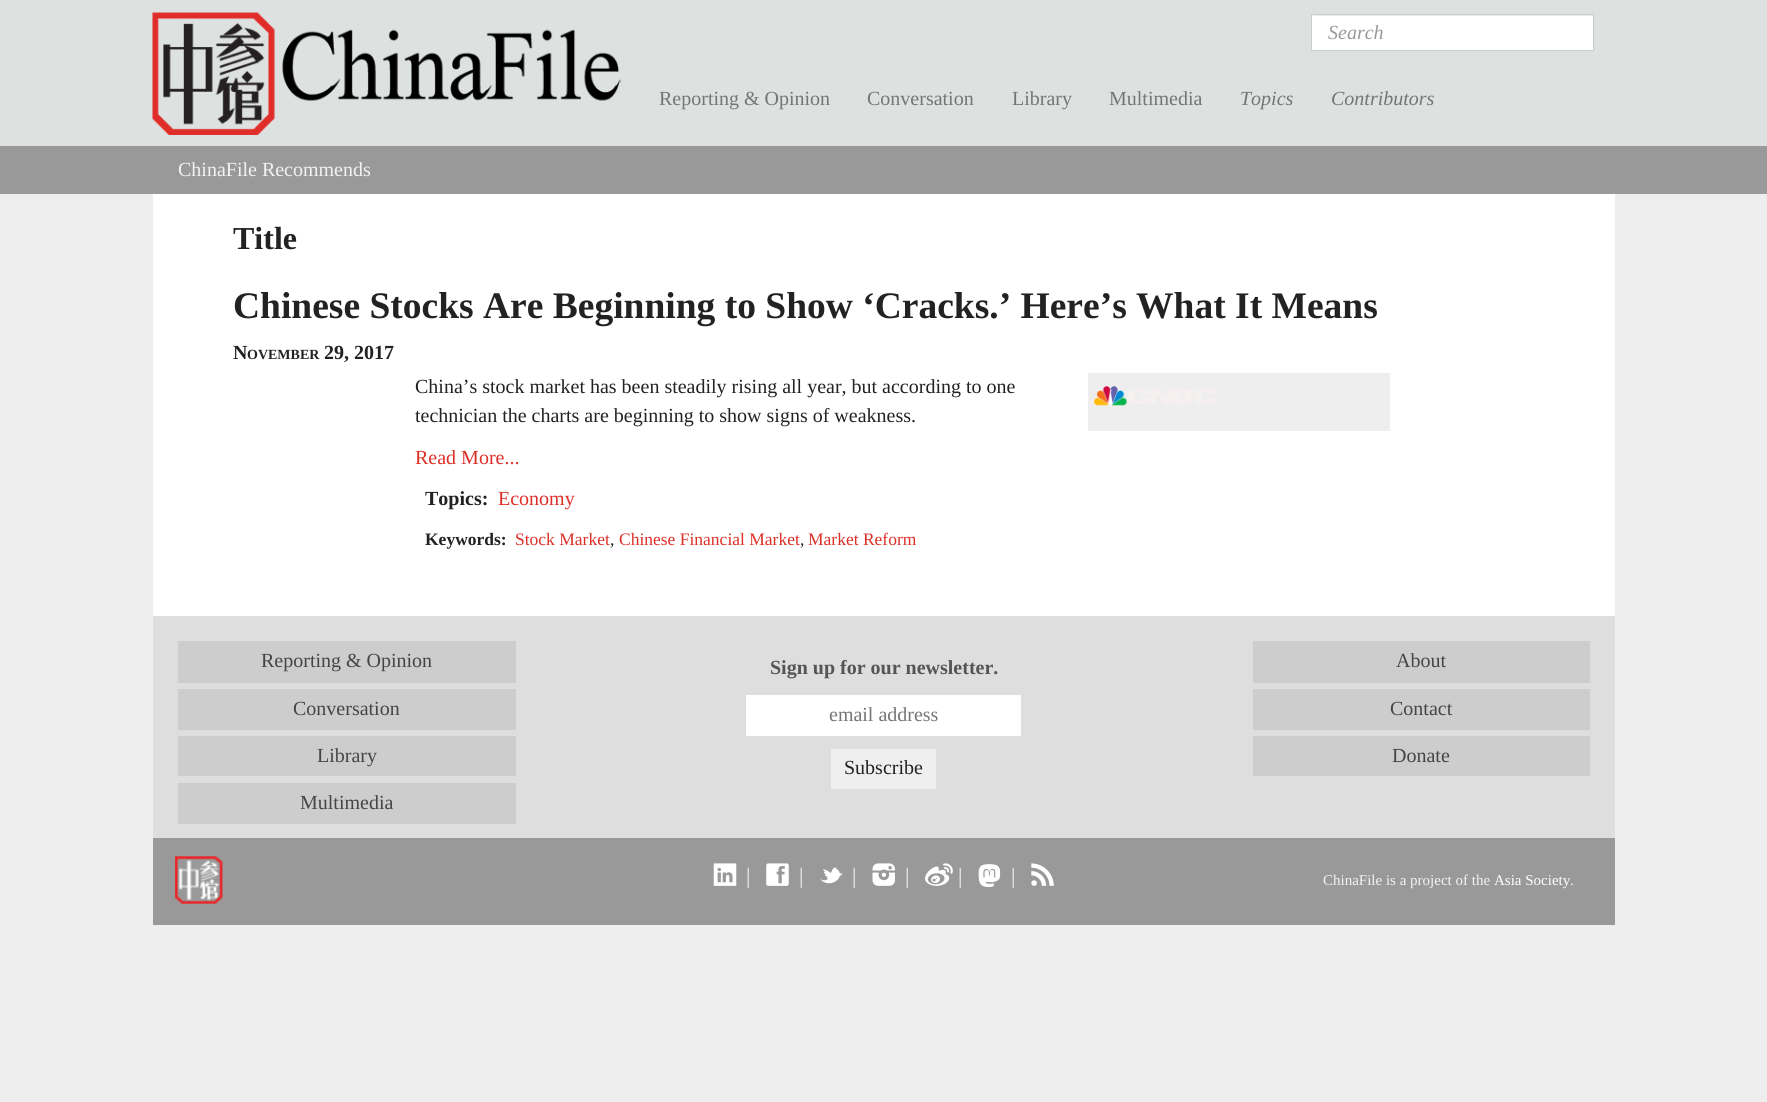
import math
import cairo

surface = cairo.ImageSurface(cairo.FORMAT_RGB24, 1767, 1102)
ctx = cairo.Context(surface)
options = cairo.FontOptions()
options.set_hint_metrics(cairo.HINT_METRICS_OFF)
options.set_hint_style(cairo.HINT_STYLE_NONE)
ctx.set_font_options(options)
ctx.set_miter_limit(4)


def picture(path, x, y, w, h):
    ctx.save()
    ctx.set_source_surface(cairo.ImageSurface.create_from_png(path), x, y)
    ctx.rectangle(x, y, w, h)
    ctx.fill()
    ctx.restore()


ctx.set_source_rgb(0.933, 0.933, 0.933)
ctx.paint()
ctx.set_source_rgb(0.867, 0.882, 0.878)
ctx.rectangle(0, 0, 1767, 146)
ctx.fill()
picture("img1.png", 152, 12, 469, 123)
ctx.set_source_rgb(1, 1, 1)
ctx.rectangle(1312, 15, 281, 35)
ctx.fill()
ctx.set_source_rgb(0.925, 0.925, 0.925)
ctx.rectangle(1313, 15, 280, 1)
ctx.fill()
ctx.rectangle(1311.5, 14.5, 282, 36)
ctx.set_source_rgb(0.8, 0.8, 0.8)
ctx.set_line_width(1)
ctx.stroke()
ctx.select_font_face("Liberation Serif", cairo.FONT_SLANT_ITALIC)
ctx.set_font_size(20)
ctx.set_source_rgb(0.6, 0.6, 0.6)
ctx.move_to(1328, 39)
ctx.show_text("Search")
ctx.select_font_face("Liberation Serif")
ctx.set_source_rgb(0.459, 0.459, 0.459)
ctx.move_to(659, 105)
ctx.show_text("Reporting & Opinion")
ctx.move_to(867, 105)
ctx.show_text("Conversation")
ctx.move_to(1012, 105)
ctx.show_text("Library")
ctx.move_to(1109, 105)
ctx.show_text("Multimedia")
ctx.select_font_face("Liberation Serif", cairo.FONT_SLANT_ITALIC)
ctx.move_to(1240, 105)
ctx.show_text("Topics")
ctx.move_to(1331, 105)
ctx.show_text("Contributors")
ctx.set_source_rgb(0.6, 0.6, 0.6)
ctx.rectangle(0, 146, 1767, 48)
ctx.fill()
ctx.select_font_face("Liberation Serif")
ctx.set_source_rgb(0.949, 0.949, 0.949)
ctx.move_to(178, 176)
ctx.show_text("ChinaFile Recommends")
ctx.set_source_rgb(1, 1, 1)
ctx.rectangle(153, 194, 1462, 422)
ctx.fill()
ctx.select_font_face("Liberation Serif", cairo.FONT_SLANT_NORMAL, cairo.FONT_WEIGHT_BOLD)
ctx.set_font_size(32)
ctx.set_source_rgb(0.133, 0.133, 0.133)
ctx.move_to(233, 249)
ctx.show_text("Title")
ctx.set_font_size(37.5)
ctx.move_to(233, 318)
ctx.show_text("Chinese Stocks Are Beginning to Show ‘Cracks.’ Here’s What It Means")
ctx.set_font_size(20)
ctx.move_to(233, 359)
ctx.show_text("N")
ctx.set_font_size(14)
ctx.move_to(247, 359)
ctx.show_text("OVEMBER")
ctx.set_font_size(20)
ctx.move_to(324, 359)
ctx.show_text("29, 2017")
ctx.select_font_face("Liberation Serif")
ctx.move_to(415, 393)
ctx.show_text("China’s stock market has been steadily rising all year, but according to one")
ctx.move_to(415, 422)
ctx.show_text("technician the charts are beginning to show signs of weakness.")
ctx.set_source_rgb(0.867, 0.184, 0.149)
ctx.move_to(415, 464)
ctx.show_text("Read More...")
ctx.select_font_face("Liberation Serif", cairo.FONT_SLANT_NORMAL, cairo.FONT_WEIGHT_BOLD)
ctx.set_source_rgb(0.133, 0.133, 0.133)
ctx.move_to(425, 505)
ctx.show_text("Topics:")
ctx.select_font_face("Liberation Serif")
ctx.set_source_rgb(0.867, 0.184, 0.149)
ctx.move_to(498, 505)
ctx.show_text("Economy")
ctx.select_font_face("Liberation Serif", cairo.FONT_SLANT_NORMAL, cairo.FONT_WEIGHT_BOLD)
ctx.set_font_size(17.5)
ctx.set_source_rgb(0.133, 0.133, 0.133)
ctx.move_to(425, 545)
ctx.show_text("Keywords:")
ctx.select_font_face("Liberation Serif")
ctx.set_source_rgb(0.867, 0.184, 0.149)
ctx.move_to(515, 545)
ctx.show_text("Stock Market")
ctx.set_source_rgb(0.133, 0.133, 0.133)
ctx.move_to(610, 545)
ctx.show_text(",")
ctx.set_source_rgb(0.867, 0.184, 0.149)
ctx.move_to(619, 545)
ctx.show_text("Chinese Financial Market")
ctx.set_source_rgb(0.133, 0.133, 0.133)
ctx.move_to(800, 545)
ctx.show_text(",")
ctx.set_source_rgb(0.867, 0.184, 0.149)
ctx.move_to(808, 545)
ctx.show_text("Market Reform")
ctx.set_source_rgb(0.933, 0.933, 0.933)
ctx.rectangle(1088, 373, 302, 58)
ctx.fill()
picture("img2.png", 1093, 386, 123, 20)
ctx.set_source_rgb(0.871, 0.871, 0.871)
ctx.rectangle(153, 616, 1462, 222)
ctx.fill()
ctx.set_source_rgb(0.804, 0.804, 0.804)
ctx.rectangle(178, 641, 338, 42)
ctx.fill()
ctx.set_font_size(20)
ctx.set_source_rgb(0.271, 0.271, 0.271)
ctx.move_to(261, 667)
ctx.show_text("Reporting & Opinion")
ctx.set_source_rgb(0.804, 0.804, 0.804)
ctx.rectangle(178, 689, 338, 41)
ctx.fill()
ctx.set_source_rgb(0.271, 0.271, 0.271)
ctx.move_to(293, 715)
ctx.show_text("Conversation")
ctx.set_source_rgb(0.804, 0.804, 0.804)
ctx.rectangle(178, 736, 338, 40)
ctx.fill()
ctx.set_source_rgb(0.271, 0.271, 0.271)
ctx.move_to(317, 762)
ctx.show_text("Library")
ctx.set_source_rgb(0.804, 0.804, 0.804)
ctx.rectangle(178, 783, 338, 41)
ctx.fill()
ctx.set_source_rgb(0.271, 0.271, 0.271)
ctx.move_to(300, 809)
ctx.show_text("Multimedia")
ctx.select_font_face("Liberation Serif", cairo.FONT_SLANT_NORMAL, cairo.FONT_WEIGHT_BOLD)
ctx.set_source_rgb(0.333, 0.333, 0.333)
ctx.move_to(770, 674)
ctx.show_text("Sign up for our newsletter.")
ctx.set_source_rgb(1, 1, 1)
ctx.rectangle(746, 695, 275, 41)
ctx.fill()
ctx.select_font_face("Liberation Serif")
ctx.set_source_rgb(0.459, 0.459, 0.459)
ctx.move_to(829, 721)
ctx.show_text("email address")
ctx.set_source_rgb(0.937, 0.937, 0.937)
ctx.rectangle(831, 749, 105, 40)
ctx.fill()
ctx.set_source_rgb(0.133, 0.133, 0.133)
ctx.move_to(844, 774)
ctx.show_text("Subscribe")
ctx.set_source_rgb(0.804, 0.804, 0.804)
ctx.rectangle(1253, 641, 337, 42)
ctx.fill()
ctx.set_source_rgb(0.271, 0.271, 0.271)
ctx.move_to(1396, 667)
ctx.show_text("About")
ctx.set_source_rgb(0.804, 0.804, 0.804)
ctx.rectangle(1253, 689, 337, 41)
ctx.fill()
ctx.set_source_rgb(0.271, 0.271, 0.271)
ctx.move_to(1390, 715)
ctx.show_text("Contact")
ctx.set_source_rgb(0.804, 0.804, 0.804)
ctx.rectangle(1253, 736, 337, 40)
ctx.fill()
ctx.set_source_rgb(0.271, 0.271, 0.271)
ctx.move_to(1392, 762)
ctx.show_text("Donate")
ctx.set_source_rgb(0.6, 0.6, 0.6)
ctx.rectangle(153, 838, 1462, 87)
ctx.fill()
picture("img3.png", 175, 856, 48, 48)
picture("img4.png", 713, 863, 24, 23)
ctx.set_font_size(22)
ctx.set_source_rgb(0.949, 0.949, 0.949)
ctx.move_to(746, 883)
ctx.show_text("|")
picture("img5.png", 766, 863, 23, 23)
ctx.move_to(799, 883)
ctx.show_text("|")
picture("img6.png", 820, 867, 23, 17)
ctx.move_to(852, 883)
ctx.show_text("|")
picture("img7.png", 872, 863, 23, 23)
ctx.move_to(905, 883)
ctx.show_text("|")
picture("img8.png", 925, 863, 28, 23)
ctx.move_to(958, 883)
ctx.show_text("|")
picture("img9.png", 978, 864, 23, 24)
ctx.move_to(1011, 883)
ctx.show_text("|")
picture("img10.png", 1031, 863, 23, 23)
ctx.set_font_size(15)
ctx.move_to(1323, 885)
ctx.show_text("ChinaFile is a project of the")
ctx.set_source_rgb(1, 1, 1)
ctx.move_to(1494, 885)
ctx.show_text("Asia Society")
ctx.set_source_rgb(0.949, 0.949, 0.949)
ctx.move_to(1570, 885)
ctx.show_text(".")
surface.write_to_png("page.png")
